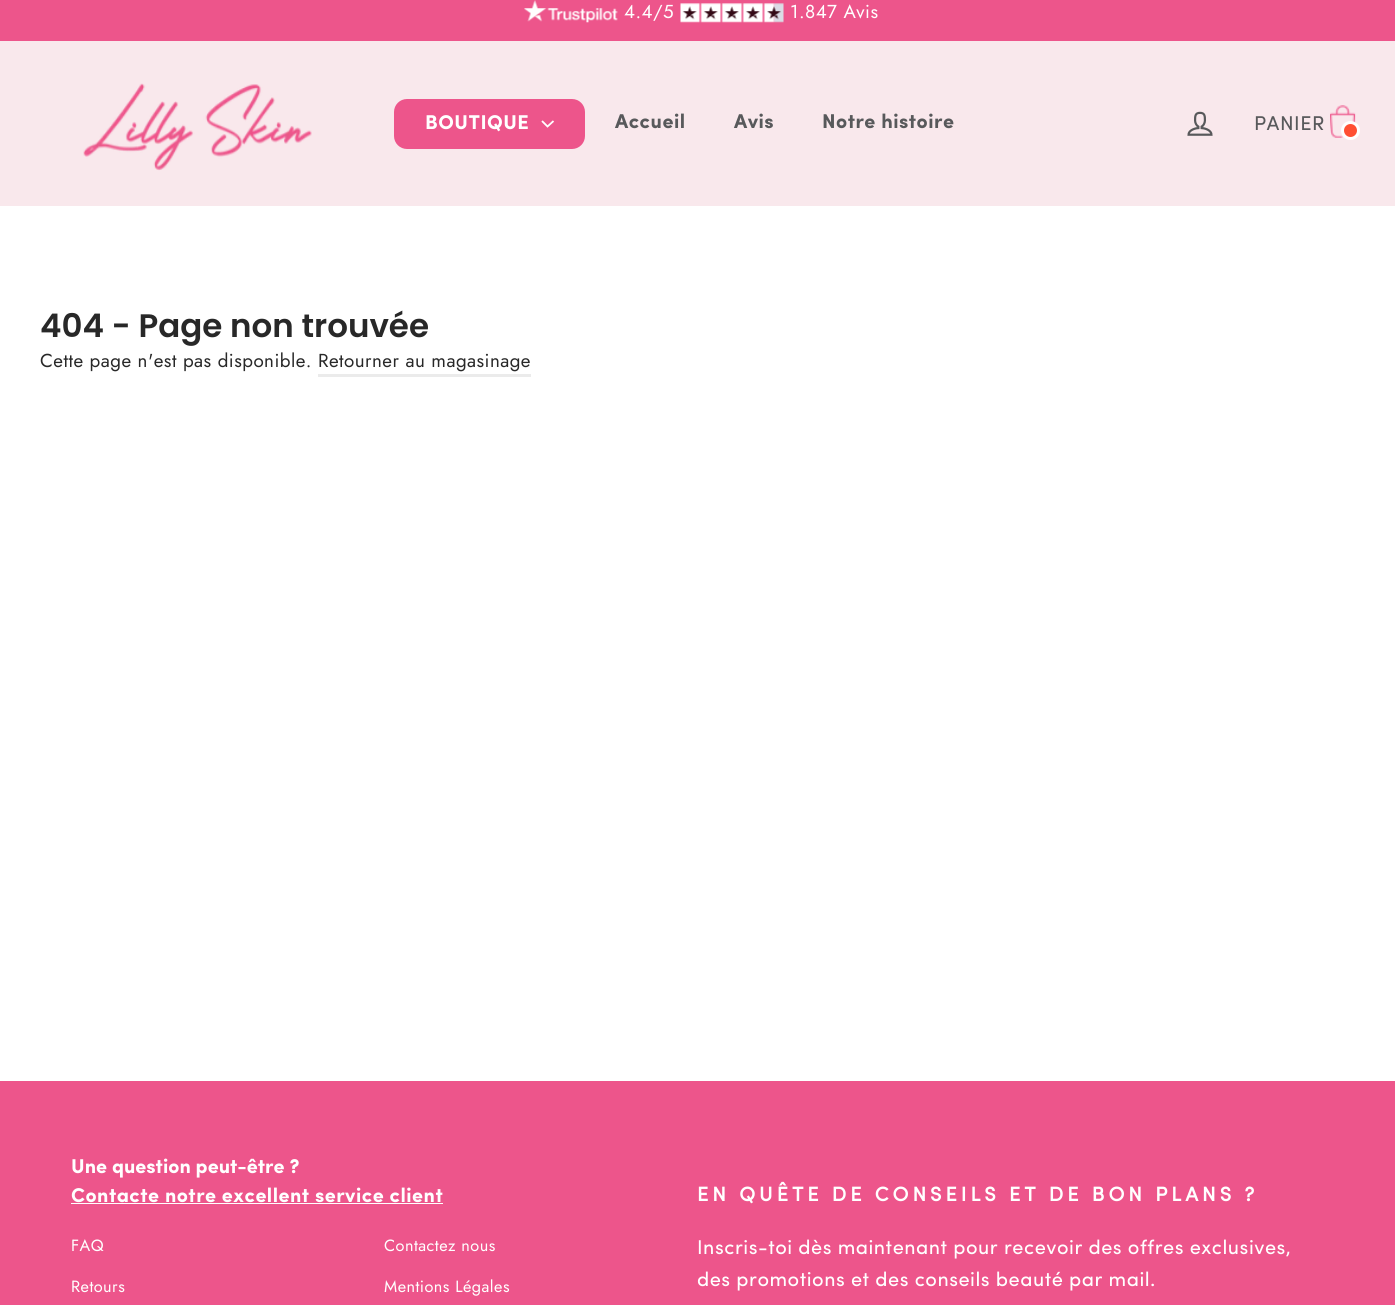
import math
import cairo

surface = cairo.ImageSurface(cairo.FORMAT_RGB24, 1395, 1305)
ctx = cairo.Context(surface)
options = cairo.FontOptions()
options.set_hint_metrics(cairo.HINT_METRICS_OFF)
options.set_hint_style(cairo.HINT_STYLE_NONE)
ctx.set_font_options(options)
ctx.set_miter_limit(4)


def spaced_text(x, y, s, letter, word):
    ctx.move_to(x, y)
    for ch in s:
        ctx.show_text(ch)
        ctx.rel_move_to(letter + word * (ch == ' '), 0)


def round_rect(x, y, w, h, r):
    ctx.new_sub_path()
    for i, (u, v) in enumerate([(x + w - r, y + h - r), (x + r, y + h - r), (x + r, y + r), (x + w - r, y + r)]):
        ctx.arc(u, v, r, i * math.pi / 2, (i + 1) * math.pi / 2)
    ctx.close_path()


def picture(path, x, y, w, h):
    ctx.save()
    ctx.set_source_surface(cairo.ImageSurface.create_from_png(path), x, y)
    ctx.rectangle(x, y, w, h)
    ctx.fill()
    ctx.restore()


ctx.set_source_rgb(1, 1, 1)
ctx.paint()
ctx.set_source_rgb(0.929, 0.333, 0.545)
ctx.rectangle(0, 0, 1395, 41)
ctx.fill()
picture("img1.png", 524, 0, 94, 23)
ctx.select_font_face("Jost")
ctx.set_font_size(18.75)
ctx.set_source_rgb(1, 1, 1)
spaced_text(624, 18, "4.4/5", 0.47, 0)
picture("img2.png", 680, 3, 104, 20)
spaced_text(790, 18, "1.847 Avis", 0.47, 0)
ctx.set_source_rgb(0.973, 0.91, 0.922)
ctx.rectangle(0, 41, 1395, 165)
ctx.fill()
picture("img3.png", 83, 83, 229, 88)
ctx.set_source_rgb(0.929, 0.333, 0.545)
round_rect(394, 99, 191, 50, 13)
ctx.fill()
ctx.select_font_face("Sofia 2", cairo.FONT_SLANT_NORMAL, cairo.FONT_WEIGHT_BOLD)
ctx.set_font_size(20)
ctx.set_source_rgb(1, 1, 1)
spaced_text(425, 129, "BOUTIQUE", 0.47, 0)
ctx.new_path()
ctx.move_to(542, 121)
ctx.line_to(547.5, 126.5)
ctx.line_to(553.5, 121)
ctx.set_line_width(1.8)
ctx.stroke()
ctx.set_source_rgb(0.345, 0.349, 0.357)
spaced_text(615, 128, "Accueil", 0.47, 0)
spaced_text(734, 128, "Avis", 0.47, 0)
spaced_text(822, 128, "Notre histoire", 0.47, 0)
picture("img4.png", 1187, 111, 26, 25)
ctx.select_font_face("Sofia")
spaced_text(1254, 130, "PANIER", 0.47, 0)
picture("img5.png", 1330, 105, 26, 33)
ctx.set_source_rgb(1, 0.31, 0.2)
ctx.arc(1350.5, 130.5, 8, 0, 2 * math.pi)
ctx.fill_preserve()
ctx.set_source_rgb(1, 1, 1)
ctx.set_line_width(3)
ctx.stroke()
ctx.select_font_face("Poppins SemiBold")
ctx.set_font_size(32.5)
ctx.set_source_rgb(0.157, 0.157, 0.157)
ctx.move_to(40, 337)
ctx.show_text("404 - Page non trouvée")
ctx.select_font_face("Jost")
ctx.set_font_size(18.75)
spaced_text(40, 367, "Cette page n'est pas disponible. Retourner au magasinage", 0.47, 0)
ctx.set_source_rgb(0.918, 0.918, 0.918)
ctx.rectangle(318, 374, 213, 3)
ctx.fill()
ctx.set_source_rgb(0.929, 0.333, 0.545)
ctx.rectangle(0, 1081, 1395, 224)
ctx.fill()
ctx.select_font_face("Sofia 2", cairo.FONT_SLANT_NORMAL, cairo.FONT_WEIGHT_BOLD)
ctx.set_font_size(20)
ctx.set_source_rgb(1, 1, 1)
ctx.move_to(71, 1173)
ctx.show_text("Une question peut-être ?")
ctx.select_font_face("Jost")
ctx.set_font_size(16.25)
spaced_text(71, 1251, "FAQ", 0.47, 0)
spaced_text(71, 1292, "Retours", 0.47, 0)
spaced_text(384, 1251, "Contactez nous", 0.47, 0)
spaced_text(384, 1292, "Mentions Légales", 0.47, 0)
ctx.select_font_face("Sofia", cairo.FONT_SLANT_NORMAL, cairo.FONT_WEIGHT_BOLD)
ctx.set_font_size(20)
spaced_text(697, 1201, "EN QUÊTE DE CONSEILS ET DE BON PLANS ?", 4, 0)
ctx.select_font_face("Sofia")
spaced_text(697, 1254, "Inscris-toi dès maintenant pour recevoir des offres exclusives,", 0.5, 0)
spaced_text(697, 1286, "des promotions et des conseils beauté par mail.", 0.5, 0)
ctx.select_font_face("Sofia 2", cairo.FONT_SLANT_NORMAL, cairo.FONT_WEIGHT_BOLD)
spaced_text(71, 1202, "Contacte notre excellent service client", 0.47, 0)
ctx.rectangle(71, 1203, 372, 1)
ctx.fill()
surface.write_to_png("page.png")
